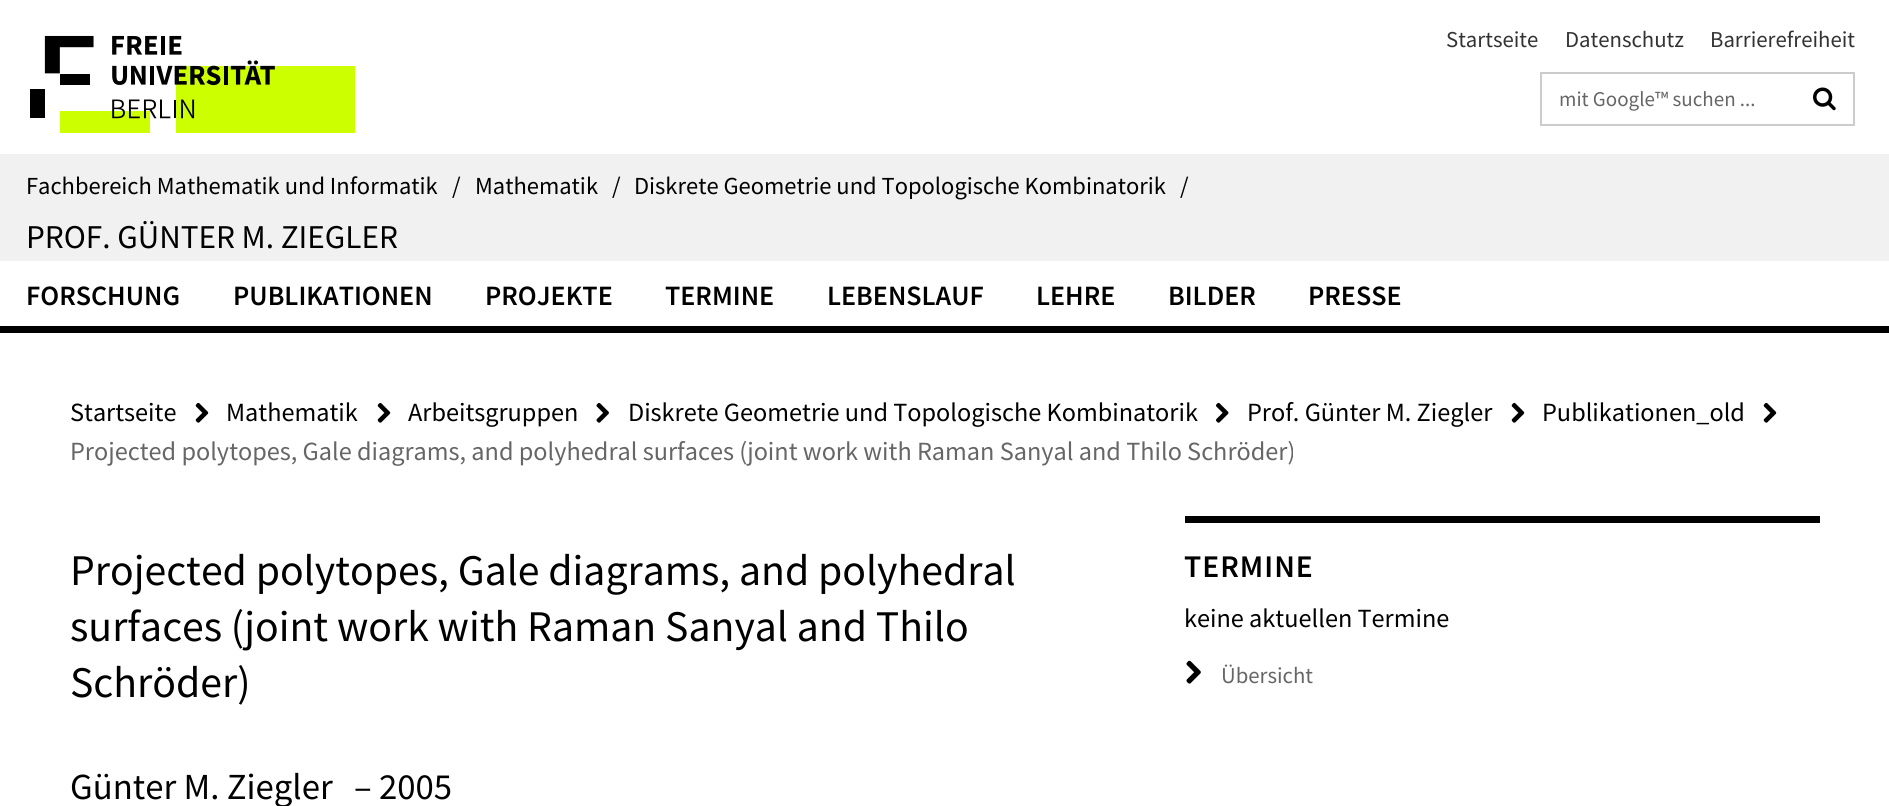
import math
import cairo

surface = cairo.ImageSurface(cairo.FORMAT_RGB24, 1889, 806)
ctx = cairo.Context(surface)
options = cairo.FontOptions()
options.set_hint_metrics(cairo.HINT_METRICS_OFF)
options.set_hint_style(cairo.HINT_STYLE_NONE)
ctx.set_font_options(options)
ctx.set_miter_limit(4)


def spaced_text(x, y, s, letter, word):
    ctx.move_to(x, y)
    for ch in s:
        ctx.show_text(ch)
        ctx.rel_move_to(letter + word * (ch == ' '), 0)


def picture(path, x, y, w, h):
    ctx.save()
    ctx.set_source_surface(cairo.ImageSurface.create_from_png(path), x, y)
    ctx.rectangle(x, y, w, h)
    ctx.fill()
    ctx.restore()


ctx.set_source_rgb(1, 1, 1)
ctx.paint()
picture("img1.png", 30, 35, 325, 98)
ctx.select_font_face("Source Sans Pro")
ctx.set_font_size(22.75)
ctx.set_source_rgb(0.2, 0.2, 0.2)
ctx.move_to(1446, 47)
ctx.show_text("Startseite")
ctx.move_to(1565, 47)
ctx.show_text("Datenschutz")
ctx.move_to(1710, 47)
ctx.show_text("Barrierefreiheit")
ctx.rectangle(1541, 73, 313, 52)
ctx.set_source_rgb(0.8, 0.8, 0.8)
ctx.stroke()
ctx.set_font_size(21)
ctx.set_source_rgb(0.4, 0.4, 0.4)
ctx.move_to(1559, 106)
ctx.show_text("mit Google™ suchen ...")
picture("img2.png", 1813, 87, 23, 24)
ctx.set_source_rgb(0.945, 0.945, 0.945)
ctx.rectangle(0, 154, 1889, 107)
ctx.fill()
ctx.set_font_size(24.5)
ctx.set_source_rgb(0, 0, 0)
ctx.move_to(26, 194)
ctx.show_text("Fachbereich Mathematik und Informatik")
ctx.move_to(452, 194)
ctx.show_text("/")
ctx.move_to(475, 194)
ctx.show_text("Mathematik")
ctx.move_to(612, 194)
ctx.show_text("/")
ctx.move_to(634, 194)
ctx.show_text("Diskrete Geometrie und Topologische Kombinatorik")
ctx.move_to(1180, 194)
ctx.show_text("/")
ctx.set_font_size(33.25)
ctx.move_to(26, 248)
ctx.show_text("PROF. GÜNTER M. ZIEGLER")
ctx.rectangle(0, 326, 1889, 7)
ctx.fill()
ctx.select_font_face("Source Sans Pro SemiBold")
ctx.set_font_size(28)
ctx.move_to(26, 305)
ctx.show_text("FORSCHUNG")
ctx.move_to(233, 305)
ctx.show_text("PUBLIKATIONEN")
ctx.move_to(485, 305)
ctx.show_text("PROJEKTE")
ctx.move_to(665, 305)
ctx.show_text("TERMINE")
ctx.move_to(827, 305)
ctx.show_text("LEBENSLAUF")
ctx.move_to(1036, 305)
ctx.show_text("LEHRE")
ctx.move_to(1168, 305)
ctx.show_text("BILDER")
ctx.move_to(1308, 305)
ctx.show_text("PRESSE")
ctx.select_font_face("Source Sans Pro")
ctx.set_font_size(26.25)
ctx.move_to(70, 421)
ctx.show_text("Startseite")
picture("img3.png", 195, 402, 14, 21)
ctx.move_to(226, 421)
ctx.show_text("Mathematik")
picture("img3.png", 377, 402, 14, 21)
ctx.move_to(408, 421)
ctx.show_text("Arbeitsgruppen")
picture("img4.png", 596, 403, 13, 20)
ctx.move_to(628, 421)
ctx.show_text("Diskrete Geometrie und Topologische Kombinatorik")
picture("img5.png", 1216, 402, 13, 21)
ctx.move_to(1247, 421)
ctx.show_text("Prof. Günter M. Ziegler")
picture("img3.png", 1511, 402, 14, 21)
ctx.move_to(1542, 421)
ctx.show_text("Publikationen_old")
picture("img3.png", 1763, 402, 14, 21)
ctx.set_source_rgb(0.4, 0.4, 0.4)
ctx.move_to(70, 460)
ctx.show_text("Projected polytopes, Gale diagrams, and polyhedral surfaces (joint work with Raman Sanyal and Thilo Schröder)")
ctx.set_font_size(43.75)
ctx.set_source_rgb(0, 0, 0)
ctx.move_to(70, 585)
ctx.show_text("Projected polytopes, Gale diagrams, and polyhedral")
ctx.move_to(70, 641)
ctx.show_text("surfaces (joint work with Raman Sanyal and Thilo")
ctx.move_to(70, 697)
ctx.show_text("Schröder)")
ctx.set_font_size(36.75)
ctx.move_to(70, 799)
ctx.show_text("Günter M. Ziegler")
ctx.move_to(354, 799)
ctx.show_text("– 2005")
ctx.rectangle(1185, 516, 635, 7)
ctx.fill()
ctx.select_font_face("Source Sans Pro SemiBold")
ctx.set_font_size(31.5)
spaced_text(1184, 577, "TERMINE", 1, 0)
ctx.select_font_face("Source Sans Pro")
ctx.set_font_size(26.25)
ctx.move_to(1184, 627)
ctx.show_text("keine aktuellen Termine")
picture("img6.png", 1186, 660, 15, 24)
ctx.set_font_size(22.75)
ctx.set_source_rgb(0.4, 0.4, 0.4)
ctx.move_to(1221, 683)
ctx.show_text("Übersicht")
surface.write_to_png("page.png")
